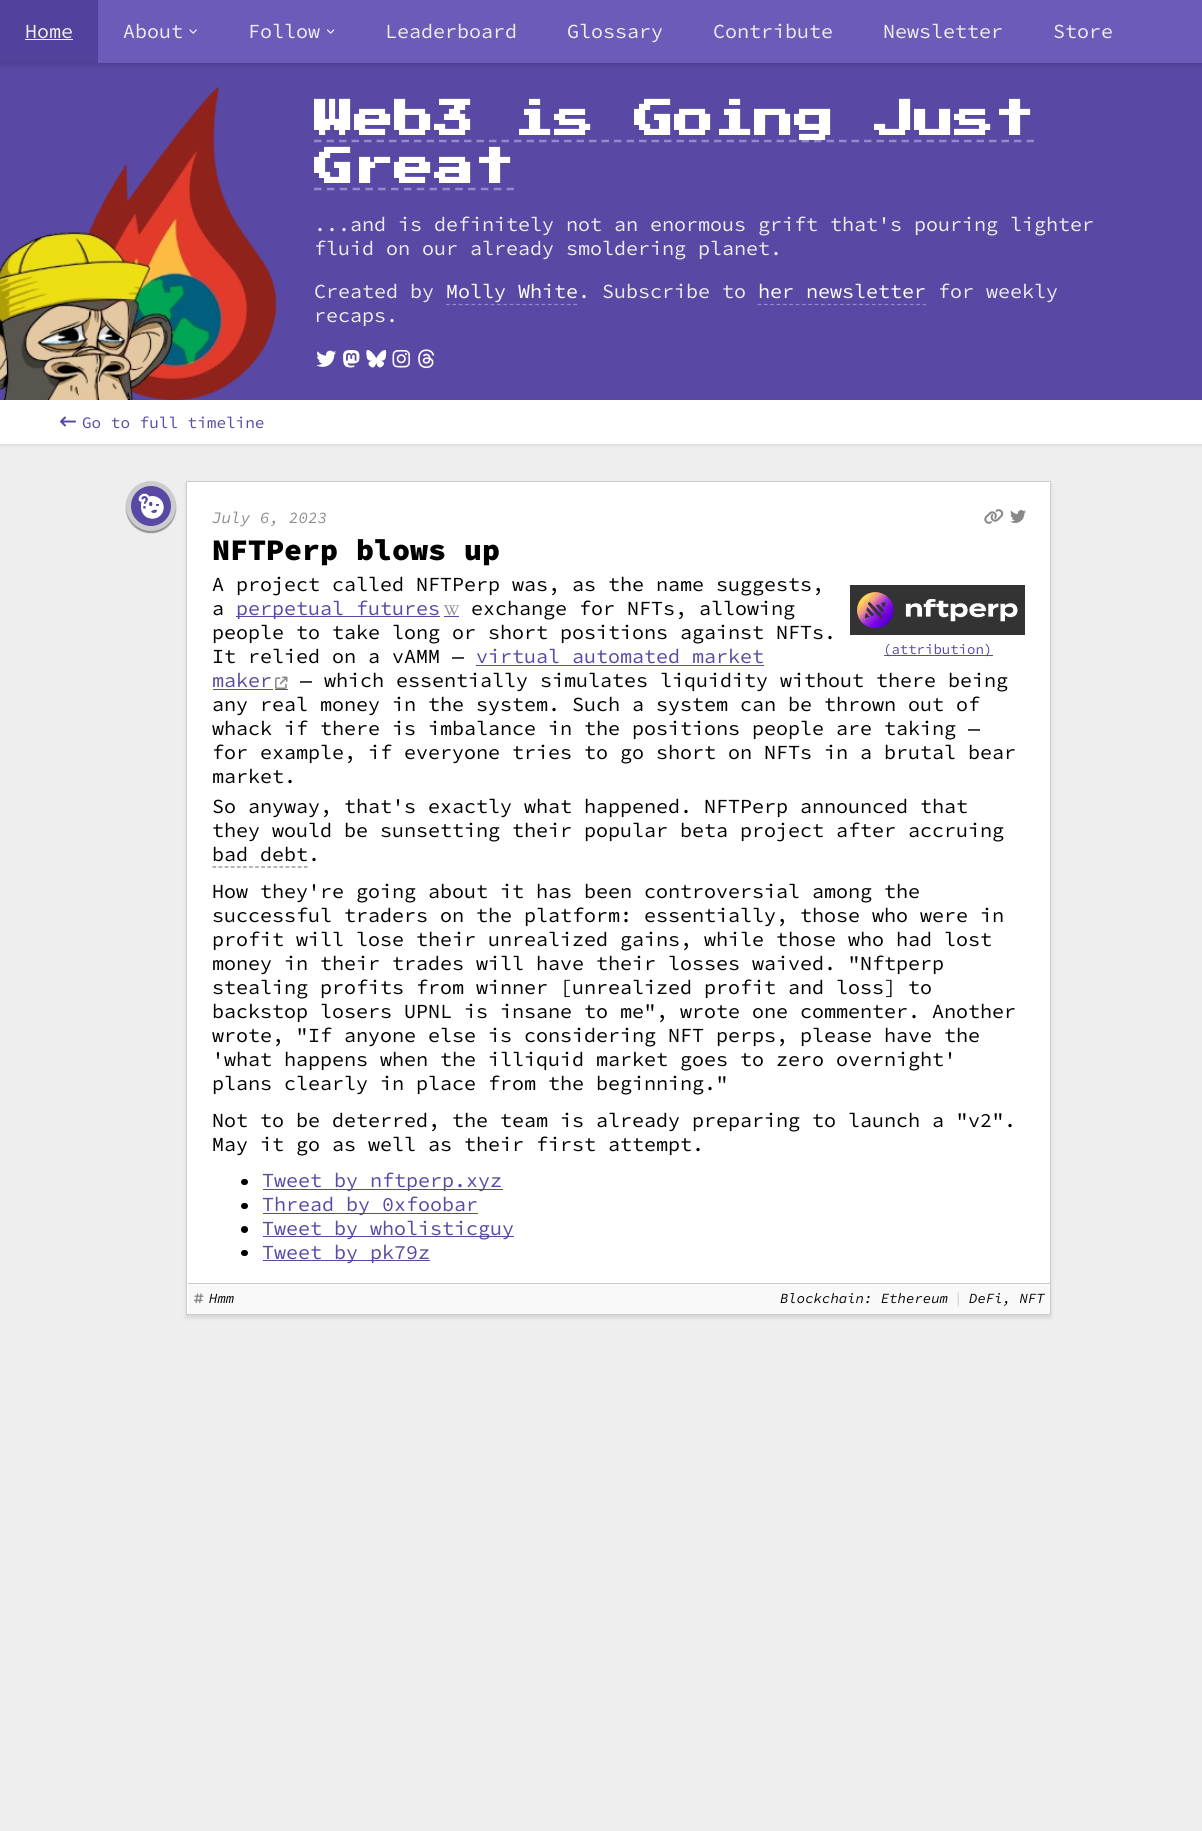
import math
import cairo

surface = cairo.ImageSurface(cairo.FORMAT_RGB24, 1202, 1831)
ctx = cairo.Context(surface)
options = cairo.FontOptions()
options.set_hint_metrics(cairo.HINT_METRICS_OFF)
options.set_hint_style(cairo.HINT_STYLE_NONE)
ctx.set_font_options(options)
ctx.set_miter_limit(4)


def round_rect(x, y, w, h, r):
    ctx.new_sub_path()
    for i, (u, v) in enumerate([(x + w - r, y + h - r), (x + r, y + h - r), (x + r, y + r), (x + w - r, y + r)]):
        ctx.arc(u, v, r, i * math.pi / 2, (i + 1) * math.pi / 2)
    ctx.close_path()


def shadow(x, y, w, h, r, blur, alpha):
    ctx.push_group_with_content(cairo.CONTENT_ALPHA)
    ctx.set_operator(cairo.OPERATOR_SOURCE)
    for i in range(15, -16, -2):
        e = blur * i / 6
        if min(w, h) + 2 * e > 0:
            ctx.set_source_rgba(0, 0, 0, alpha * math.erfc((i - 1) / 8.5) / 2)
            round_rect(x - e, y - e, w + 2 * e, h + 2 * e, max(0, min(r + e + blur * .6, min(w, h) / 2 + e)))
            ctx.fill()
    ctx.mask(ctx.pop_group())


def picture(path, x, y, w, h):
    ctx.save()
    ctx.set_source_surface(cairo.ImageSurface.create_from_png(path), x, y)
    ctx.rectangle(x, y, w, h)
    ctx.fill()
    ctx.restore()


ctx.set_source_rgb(0.933, 0.933, 0.933)
ctx.paint()
ctx.set_source_rgb(0, 0, 0)
shadow(0, 401, 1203, 44, 0, 2, 0.1)
ctx.set_source_rgb(0.349, 0.282, 0.643)
ctx.rectangle(0, 63, 1202, 337)
ctx.fill()
ctx.set_source_rgb(0, 0, 0)
shadow(0, 1, 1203, 63, 0, 2, 0.2)
ctx.set_source_rgb(0.427, 0.357, 0.725)
ctx.rectangle(98, 0, 1104, 63)
ctx.fill()
ctx.set_source_rgb(0.325, 0.259, 0.608)
ctx.rectangle(0, 0, 98, 63)
ctx.fill()
ctx.select_font_face("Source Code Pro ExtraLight")
ctx.set_font_size(20)
ctx.set_source_rgb(0.933, 0.933, 0.933)
ctx.move_to(25, 38)
ctx.show_text("Home")
ctx.rectangle(25, 39, 48, 1)
ctx.fill()
ctx.move_to(123, 38)
ctx.show_text("About")
picture("img1.png", 189, 29, 8, 5)
ctx.move_to(248, 38)
ctx.show_text("Follow")
picture("img2.png", 327, 29, 8, 5)
ctx.move_to(385, 38)
ctx.show_text("Leaderboard")
ctx.move_to(567, 38)
ctx.show_text("Glossary")
ctx.move_to(713, 38)
ctx.show_text("Contribute")
ctx.move_to(883, 38)
ctx.show_text("Newsletter")
ctx.move_to(1053, 38)
ctx.show_text("Store")
picture("img3.png", 0, 87, 277, 313)
ctx.new_path()
ctx.move_to(314, 141)
ctx.line_to(1034, 141)
ctx.set_source_rgb(0.58, 0.529, 0.796)
ctx.set_line_width(2.5)
ctx.set_dash([7.5, 5])
ctx.stroke()
ctx.select_font_face("Press Start 2P", cairo.FONT_SLANT_NORMAL, cairo.FONT_WEIGHT_BOLD)
ctx.set_font_size(40)
ctx.set_source_rgb(1, 1, 1)
ctx.move_to(314, 140)
ctx.show_text("Web3 is Going Just")
ctx.move_to(314, 188)
ctx.show_text("Great")
ctx.new_path()
ctx.move_to(314, 189)
ctx.line_to(514, 189)
ctx.set_source_rgb(0.58, 0.529, 0.796)
ctx.set_dash([7.5, 5.34])
ctx.stroke()
ctx.select_font_face("Source Code Pro ExtraLight")
ctx.set_font_size(20)
ctx.set_source_rgb(0.933, 0.933, 0.933)
ctx.move_to(314, 231)
ctx.show_text("...and is definitely not an enormous grift that's pouring lighter")
ctx.move_to(314, 255)
ctx.show_text("fluid on our already smoldering planet.")
ctx.move_to(314, 298)
ctx.show_text("Created by")
ctx.set_source_rgb(1, 1, 1)
ctx.move_to(446, 298)
ctx.show_text("Molly White")
ctx.new_path()
ctx.move_to(446, 304.5)
ctx.line_to(577.5, 304.5)
ctx.set_source_rgb(0.58, 0.529, 0.796)
ctx.set_line_width(1.2)
ctx.set_dash([3.75, 2.62])
ctx.stroke()
ctx.set_source_rgb(0.933, 0.933, 0.933)
ctx.move_to(578, 298)
ctx.show_text(". Subscribe to")
ctx.set_source_rgb(1, 1, 1)
ctx.move_to(758, 298)
ctx.show_text("her newsletter")
ctx.new_path()
ctx.move_to(757.5, 304.5)
ctx.line_to(926, 304.5)
ctx.set_source_rgb(0.58, 0.529, 0.796)
ctx.set_dash([3.75, 2.6])
ctx.stroke()
ctx.set_source_rgb(0.933, 0.933, 0.933)
ctx.move_to(938, 298)
ctx.show_text("for weekly")
ctx.move_to(314, 322)
ctx.show_text("recaps.")
picture("img4.png", 316, 350, 21, 17)
picture("img5.png", 343, 350, 17, 18)
picture("img6.png", 366, 350, 21, 18)
picture("img7.png", 392, 350, 18, 18)
picture("img8.png", 418, 349, 17, 20)
ctx.set_source_rgb(1, 1, 1)
ctx.rectangle(0, 400, 1202, 44)
ctx.fill()
picture("img9.png", 60, 416, 16, 11)
ctx.set_font_size(16)
ctx.set_source_rgb(0.349, 0.282, 0.643)
ctx.move_to(82, 428)
ctx.show_text("Go to full timeline")
ctx.set_source_rgb(0, 0, 0)
shadow(126, 483, 50, 50, 25, 0.5, 0.4)
ctx.set_source_rgb(0.349, 0.282, 0.643)
ctx.arc(151, 506, 22.5, 0, 2 * math.pi)
ctx.fill_preserve()
ctx.set_source_rgb(0.8, 0.8, 0.8)
ctx.set_line_width(5)
ctx.set_dash([])
ctx.stroke()
picture("img10.png", 138, 493, 26, 26)
ctx.set_source_rgb(0, 0, 0)
shadow(186, 484, 865, 834, 0, 2, 0.1)
ctx.set_source_rgb(1, 1, 1)
ctx.rectangle(186.5, 481.5, 864, 833)
ctx.fill_preserve()
ctx.set_source_rgb(0.8, 0.8, 0.8)
ctx.set_line_width(1)
ctx.stroke()
ctx.select_font_face("Source Code Pro ExtraLight", cairo.FONT_SLANT_ITALIC)
ctx.set_source_rgb(0.533, 0.533, 0.533)
ctx.move_to(212, 523)
ctx.show_text("July 6, 2023")
picture("img11.png", 984, 509, 20, 15)
picture("img12.png", 1010, 510, 16, 13)
ctx.select_font_face("Source Code Pro ExtraLight Black")
ctx.set_font_size(30)
ctx.set_source_rgb(0, 0, 0)
ctx.move_to(212, 560)
ctx.show_text("NFTPerp blows up")
ctx.select_font_face("Source Code Pro ExtraLight")
ctx.set_font_size(20)
ctx.move_to(212, 591)
ctx.show_text("A project called NFTPerp was, as the name suggests,")
ctx.move_to(212, 615)
ctx.show_text("a")
ctx.set_source_rgb(0.349, 0.282, 0.643)
ctx.rectangle(236, 616, 204, 1)
ctx.fill()
ctx.move_to(236, 615)
ctx.show_text("perpetual futures")
ctx.rectangle(444, 616, 15, 1)
ctx.fill()
picture("img13.png", 443, 605, 17, 11)
ctx.set_source_rgb(0, 0, 0)
ctx.move_to(471, 615)
ctx.show_text("exchange for NFTs, allowing")
ctx.move_to(212, 639)
ctx.show_text("people to take long or short positions against NFTs.")
ctx.move_to(212, 663)
ctx.show_text("It relied on a vAMM —")
ctx.set_source_rgb(0.349, 0.282, 0.643)
ctx.move_to(476, 663)
ctx.show_text("virtual automated market")
ctx.rectangle(476, 665, 288, 1)
ctx.fill()
ctx.move_to(212, 687)
ctx.show_text("maker")
ctx.rectangle(213, 689, 60, 1)
ctx.fill()
ctx.rectangle(275, 689, 13, 1)
ctx.fill()
picture("img14.png", 275, 676, 13, 14)
ctx.set_source_rgb(0, 0, 0)
ctx.move_to(300, 687)
ctx.show_text("— which essentially simulates liquidity without there being")
ctx.move_to(212, 711)
ctx.show_text("any real money in the system. Such a system can be thrown out of")
ctx.move_to(212, 735)
ctx.show_text("whack if there is imbalance in the positions people are taking —")
ctx.move_to(212, 759)
ctx.show_text("for example, if everyone tries to go short on NFTs in a brutal bear")
ctx.move_to(212, 783)
ctx.show_text("market.")
ctx.move_to(212, 813)
ctx.show_text("So anyway, that's exactly what happened. NFTPerp announced that")
ctx.move_to(212, 837)
ctx.show_text("they would be sunsetting their popular beta project after accruing")
ctx.new_path()
ctx.move_to(212.5, 867)
ctx.line_to(307.5, 867)
ctx.set_source_rgb(0.502, 0.502, 0.502)
ctx.set_line_width(1.2)
ctx.set_dash([3.75, 2.34])
ctx.stroke()
ctx.set_source_rgb(0, 0, 0)
ctx.move_to(212, 861)
ctx.show_text("bad debt.")
ctx.move_to(212, 898)
ctx.show_text("How they're going about it has been controversial among the")
ctx.move_to(212, 922)
ctx.show_text("successful traders on the platform: essentially, those who were in")
ctx.move_to(212, 946)
ctx.show_text("profit will lose their unrealized gains, while those who had lost")
ctx.move_to(212, 970)
ctx.show_text("money in their trades will have their losses waived. \"Nftperp")
ctx.move_to(212, 994)
ctx.show_text("stealing profits from winner [unrealized profit and loss] to")
ctx.move_to(212, 1018)
ctx.show_text("backstop losers UPNL is insane to me\", wrote one commenter. Another")
ctx.move_to(212, 1042)
ctx.show_text("wrote, \"If anyone else is considering NFT perps, please have the")
ctx.move_to(212, 1066)
ctx.show_text("'what happens when the illiquid market goes to zero overnight'")
ctx.move_to(212, 1090)
ctx.show_text("plans clearly in place from the beginning.\"")
ctx.move_to(212, 1127)
ctx.show_text("Not to be deterred, the team is already preparing to launch a \"v2\".")
ctx.move_to(212, 1151)
ctx.show_text("May it go as well as their first attempt.")
ctx.set_source_rgb(0.2, 0.2, 0.2)
ctx.rectangle(850, 585, 175, 50)
ctx.fill()
picture("img15.png", 857, 592, 161, 37)
ctx.set_source_rgb(0.349, 0.282, 0.643)
ctx.rectangle(884, 655, 109, 1)
ctx.fill()
ctx.set_font_size(14)
ctx.move_to(883, 654)
ctx.show_text("(attribution)")
ctx.set_source_rgb(0, 0, 0)
round_rect(241, 1179, 7, 6, 3)
ctx.fill()
ctx.set_source_rgb(0.349, 0.282, 0.643)
ctx.rectangle(263, 1189, 240, 1)
ctx.fill()
ctx.set_font_size(20)
ctx.move_to(262, 1187)
ctx.show_text("Tweet by nftperp.xyz")
ctx.set_source_rgb(0, 0, 0)
round_rect(241, 1203, 7, 6, 3)
ctx.fill()
ctx.set_source_rgb(0.349, 0.282, 0.643)
ctx.rectangle(263, 1213, 215, 1)
ctx.fill()
ctx.move_to(262, 1211)
ctx.show_text("Thread by 0xfoobar")
ctx.set_source_rgb(0, 0, 0)
ctx.new_path()
ctx.arc(244.5, 1229.5, 3.5, 0, 2 * math.pi)
ctx.fill()
ctx.set_source_rgb(0.349, 0.282, 0.643)
ctx.rectangle(263, 1236, 251, 1)
ctx.fill()
ctx.move_to(262, 1235)
ctx.show_text("Tweet by wholisticguy")
ctx.set_source_rgb(0, 0, 0)
round_rect(241, 1250, 7, 6, 3)
ctx.fill()
ctx.set_source_rgb(0.349, 0.282, 0.643)
ctx.rectangle(263, 1260, 167, 1)
ctx.fill()
ctx.move_to(262, 1259)
ctx.show_text("Tweet by pk79z")
ctx.set_source_rgb(0.976, 0.976, 0.976)
ctx.rectangle(188, 1284, 862, 30)
ctx.fill()
ctx.set_source_rgb(0.8, 0.8, 0.8)
ctx.rectangle(188, 1283, 862, 1)
ctx.fill()
picture("img16.png", 194, 1293, 10, 11)
ctx.select_font_face("Source Code Pro ExtraLight", cairo.FONT_SLANT_ITALIC)
ctx.set_font_size(14)
ctx.set_source_rgb(0, 0, 0)
ctx.move_to(209, 1303)
ctx.show_text("Hmm")
ctx.move_to(780, 1303)
ctx.show_text("Blockchain: Ethereum")
ctx.set_source_rgb(0.8, 0.8, 0.8)
ctx.move_to(954, 1303)
ctx.show_text("|")
ctx.set_source_rgb(0, 0, 0)
ctx.move_to(969, 1303)
ctx.show_text("DeFi, NFT")
surface.write_to_png("page.png")
